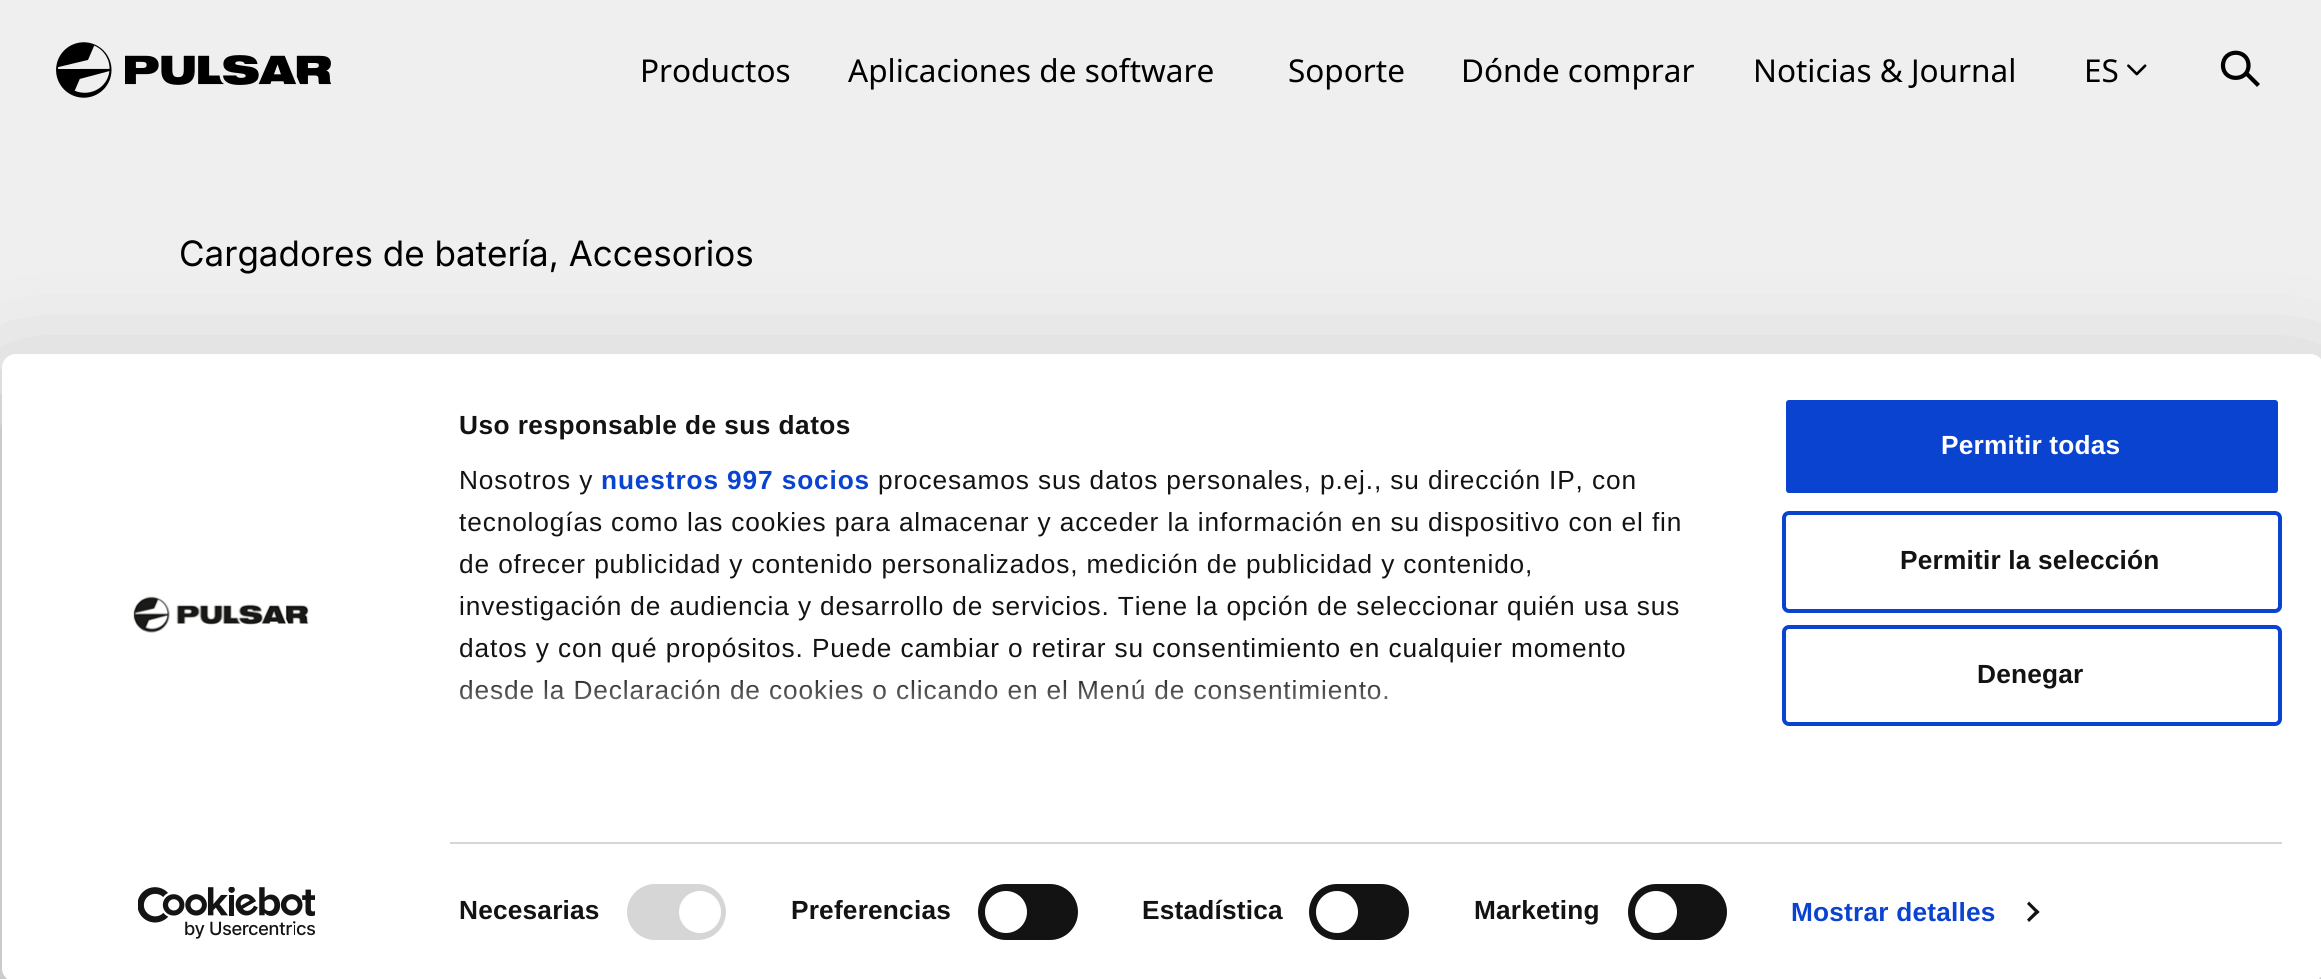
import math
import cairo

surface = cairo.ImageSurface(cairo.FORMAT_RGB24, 2321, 979)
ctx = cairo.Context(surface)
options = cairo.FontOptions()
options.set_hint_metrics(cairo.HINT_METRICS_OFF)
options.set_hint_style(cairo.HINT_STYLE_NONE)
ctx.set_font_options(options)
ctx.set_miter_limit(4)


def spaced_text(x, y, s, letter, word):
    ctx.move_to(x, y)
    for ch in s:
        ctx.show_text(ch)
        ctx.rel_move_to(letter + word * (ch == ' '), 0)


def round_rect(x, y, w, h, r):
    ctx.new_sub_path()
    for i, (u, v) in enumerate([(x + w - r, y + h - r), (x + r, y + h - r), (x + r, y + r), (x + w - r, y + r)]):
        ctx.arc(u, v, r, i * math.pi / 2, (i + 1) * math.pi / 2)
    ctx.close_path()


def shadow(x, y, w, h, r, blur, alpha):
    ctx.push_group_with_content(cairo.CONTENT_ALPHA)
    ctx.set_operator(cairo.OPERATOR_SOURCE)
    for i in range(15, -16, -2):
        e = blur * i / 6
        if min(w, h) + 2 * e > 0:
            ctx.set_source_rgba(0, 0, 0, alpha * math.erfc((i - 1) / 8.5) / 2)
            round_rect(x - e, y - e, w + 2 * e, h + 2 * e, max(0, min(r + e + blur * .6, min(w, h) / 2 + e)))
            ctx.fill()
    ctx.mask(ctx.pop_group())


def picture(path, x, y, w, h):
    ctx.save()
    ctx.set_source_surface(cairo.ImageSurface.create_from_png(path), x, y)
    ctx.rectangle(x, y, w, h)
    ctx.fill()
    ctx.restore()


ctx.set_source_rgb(0.937, 0.937, 0.937)
ctx.paint()
picture("img1.png", 56, 42, 275, 56)
ctx.select_font_face("Noto Sans")
ctx.set_font_size(31.5)
ctx.set_source_rgb(0, 0, 0)
ctx.move_to(640, 82)
ctx.show_text("Productos")
ctx.move_to(848, 82)
ctx.show_text("Aplicaciones de software")
ctx.move_to(1288, 82)
ctx.show_text("Soporte")
ctx.move_to(1461, 82)
ctx.show_text("Dónde comprar")
ctx.move_to(1753, 82)
ctx.show_text("Noticias & Journal")
ctx.move_to(2084, 82)
ctx.show_text("ES")
picture("img2.png", 2127, 64, 20, 12)
ctx.new_path()
ctx.move_to(2248.5, 65.5)
ctx.curve_to(2248.5, 82, 2223, 82, 2223, 65.5)
ctx.curve_to(2223, 48.5, 2248.5, 48.5, 2248.5, 65.5)
ctx.close_path()
ctx.move_to(2258.5, 85.5)
ctx.line_to(2246, 73)
ctx.set_line_width(4.2)
ctx.stroke()
ctx.select_font_face("Inter")
ctx.set_font_size(35)
ctx.move_to(179, 266)
ctx.show_text("Cargadores de batería, Accesorios")
ctx.save()
ctx.set_fill_rule(cairo.FILL_RULE_EVEN_ODD)
ctx.new_path()
ctx.move_to(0, 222)
ctx.line_to(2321, 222)
ctx.line_to(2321, 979)
ctx.line_to(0, 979)
ctx.close_path()
ctx.move_to(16, 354)
ctx.line_to(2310, 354)
ctx.curve_to(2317.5, 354, 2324, 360.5, 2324, 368)
ctx.line_to(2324, 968)
ctx.curve_to(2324, 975.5, 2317.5, 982, 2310, 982)
ctx.line_to(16, 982)
ctx.curve_to(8.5, 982, 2, 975.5, 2, 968)
ctx.line_to(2, 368)
ctx.curve_to(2, 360.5, 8.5, 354, 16, 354)
ctx.close_path()
ctx.clip()
ctx.set_source_rgb(0, 0, 0)
shadow(2, 406, 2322, 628, 14, 61, 0.3)
ctx.restore()
ctx.set_source_rgb(1, 1, 1)
round_rect(2, 354, 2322, 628, 14)
ctx.fill()
ctx.select_font_face("Liberation Sans", cairo.FONT_SLANT_NORMAL, cairo.FONT_WEIGHT_BOLD)
ctx.set_font_size(26.25)
ctx.set_source_rgb(0.078, 0.078, 0.078)
spaced_text(459, 434, "Uso responsable de sus datos", 0.45, 0)
ctx.select_font_face("Liberation Sans")
spaced_text(459, 489, "Nosotros y", 0.88, 0)
ctx.select_font_face("Liberation Sans", cairo.FONT_SLANT_NORMAL, cairo.FONT_WEIGHT_BOLD)
ctx.set_source_rgb(0.043, 0.263, 0.82)
spaced_text(601, 489, "nuestros 997 socios", 0.88, 0)
ctx.select_font_face("Liberation Sans")
ctx.set_source_rgb(0.078, 0.078, 0.078)
spaced_text(878, 489, "procesamos sus datos personales, p.ej., su dirección IP, con", 0.88, 0)
spaced_text(459, 531, "tecnologías como las cookies para almacenar y acceder la información en su dispositivo con el fin", 0.88, 0)
ctx.save()
ctx.rectangle(460, 406, 1271, 387)
ctx.clip()
spaced_text(459, 573, "de ofrecer publicidad y contenido personalizados, medición de publicidad y contenido,", 0.88, 0)
ctx.restore()
spaced_text(459, 615, "investigación de audiencia y desarrollo de servicios. Tiene la opción de seleccionar quién usa sus", 0.88, 0)
ctx.save()
ctx.rectangle(460, 406, 1271, 387)
ctx.clip()
spaced_text(459, 657, "datos y con qué propósitos. Puede cambiar o retirar su consentimiento en cualquier momento", 0.88, 0)
spaced_text(459, 699, "desde la Declaración de cookies o clicando en el Menú de consentimiento.", 0.88, 0)
ctx.restore()
gradient = cairo.LinearGradient(1077, 802, 1077, 671)
gradient.add_color_stop_rgba(0, 1, 1, 1, 1)
gradient.add_color_stop_rgba(0.5, 1, 1, 1, 0.8)
gradient.add_color_stop_rgba(1, 1, 1, 1, 0)
ctx.set_source(gradient)
ctx.rectangle(460, 679, 927, 21)
ctx.fill()
ctx.set_source_rgb(0.839, 0.839, 0.839)
ctx.rectangle(450, 842, 1832, 2)
ctx.fill()
ctx.select_font_face("Liberation Sans", cairo.FONT_SLANT_NORMAL, cairo.FONT_WEIGHT_BOLD)
ctx.set_source_rgb(0.078, 0.078, 0.078)
spaced_text(459, 919, "Necesarias", 0.2, 0)
ctx.set_source_rgb(0.839, 0.839, 0.839)
round_rect(627, 884, 99, 56, 28)
ctx.fill()
ctx.set_source_rgb(1, 1, 1)
ctx.arc(700, 912, 21, 0, 2 * math.pi)
ctx.fill()
ctx.set_source_rgb(0.078, 0.078, 0.078)
spaced_text(791, 919, "Preferencias", 0.2, 0)
round_rect(978, 884, 100, 56, 28)
ctx.fill()
ctx.set_source_rgb(1, 1, 1)
ctx.arc(1006, 912, 21, 0, 2 * math.pi)
ctx.fill()
ctx.set_source_rgb(0.078, 0.078, 0.078)
spaced_text(1142, 919, "Estadística", 0.2, 0)
round_rect(1309, 884, 100, 56, 28)
ctx.fill()
ctx.set_source_rgb(1, 1, 1)
ctx.arc(1337, 912, 21, 0, 2 * math.pi)
ctx.fill()
ctx.set_source_rgb(0.078, 0.078, 0.078)
spaced_text(1474, 919, "Marketing", 0.2, 0)
round_rect(1628, 884, 99, 56, 28)
ctx.fill()
ctx.set_source_rgb(1, 1, 1)
ctx.arc(1656, 912, 21, 0, 2 * math.pi)
ctx.fill()
ctx.set_source_rgb(0.043, 0.263, 0.82)
spaced_text(1791, 921, "Mostrar detalles", 0.2, 0)
ctx.set_source_rgb(0.078, 0.078, 0.078)
ctx.new_path()
ctx.move_to(2029, 901.5)
ctx.line_to(2039.5, 912)
ctx.line_to(2037, 914)
ctx.line_to(2027, 904)
ctx.close_path()
ctx.fill()
ctx.new_path()
ctx.move_to(2037, 909.5)
ctx.line_to(2039.5, 912)
ctx.line_to(2029, 922)
ctx.line_to(2027, 919.5)
ctx.close_path()
ctx.fill()
ctx.set_source_rgb(0.043, 0.263, 0.82)
round_rect(1784, 398, 496, 97, 5)
ctx.fill_preserve()
ctx.set_source_rgb(1, 1, 1)
ctx.set_line_width(4)
ctx.stroke()
spaced_text(1941, 454, "Permitir todas", 0.2, 0)
round_rect(1784, 513, 496, 98, 5)
ctx.set_source_rgb(0.043, 0.263, 0.82)
ctx.stroke()
ctx.set_source_rgb(0.078, 0.078, 0.078)
spaced_text(1900, 569, "Permitir la selección", 0.2, 0)
round_rect(1784, 627, 496, 97, 5)
ctx.set_source_rgb(0.043, 0.263, 0.82)
ctx.stroke()
ctx.set_source_rgb(0.078, 0.078, 0.078)
spaced_text(1977, 683, "Denegar", 0.2, 0)
picture("img3.png", 133, 596, 176, 37)
picture("img4.png", 138, 887, 177, 52)
surface.write_to_png("page.png")
